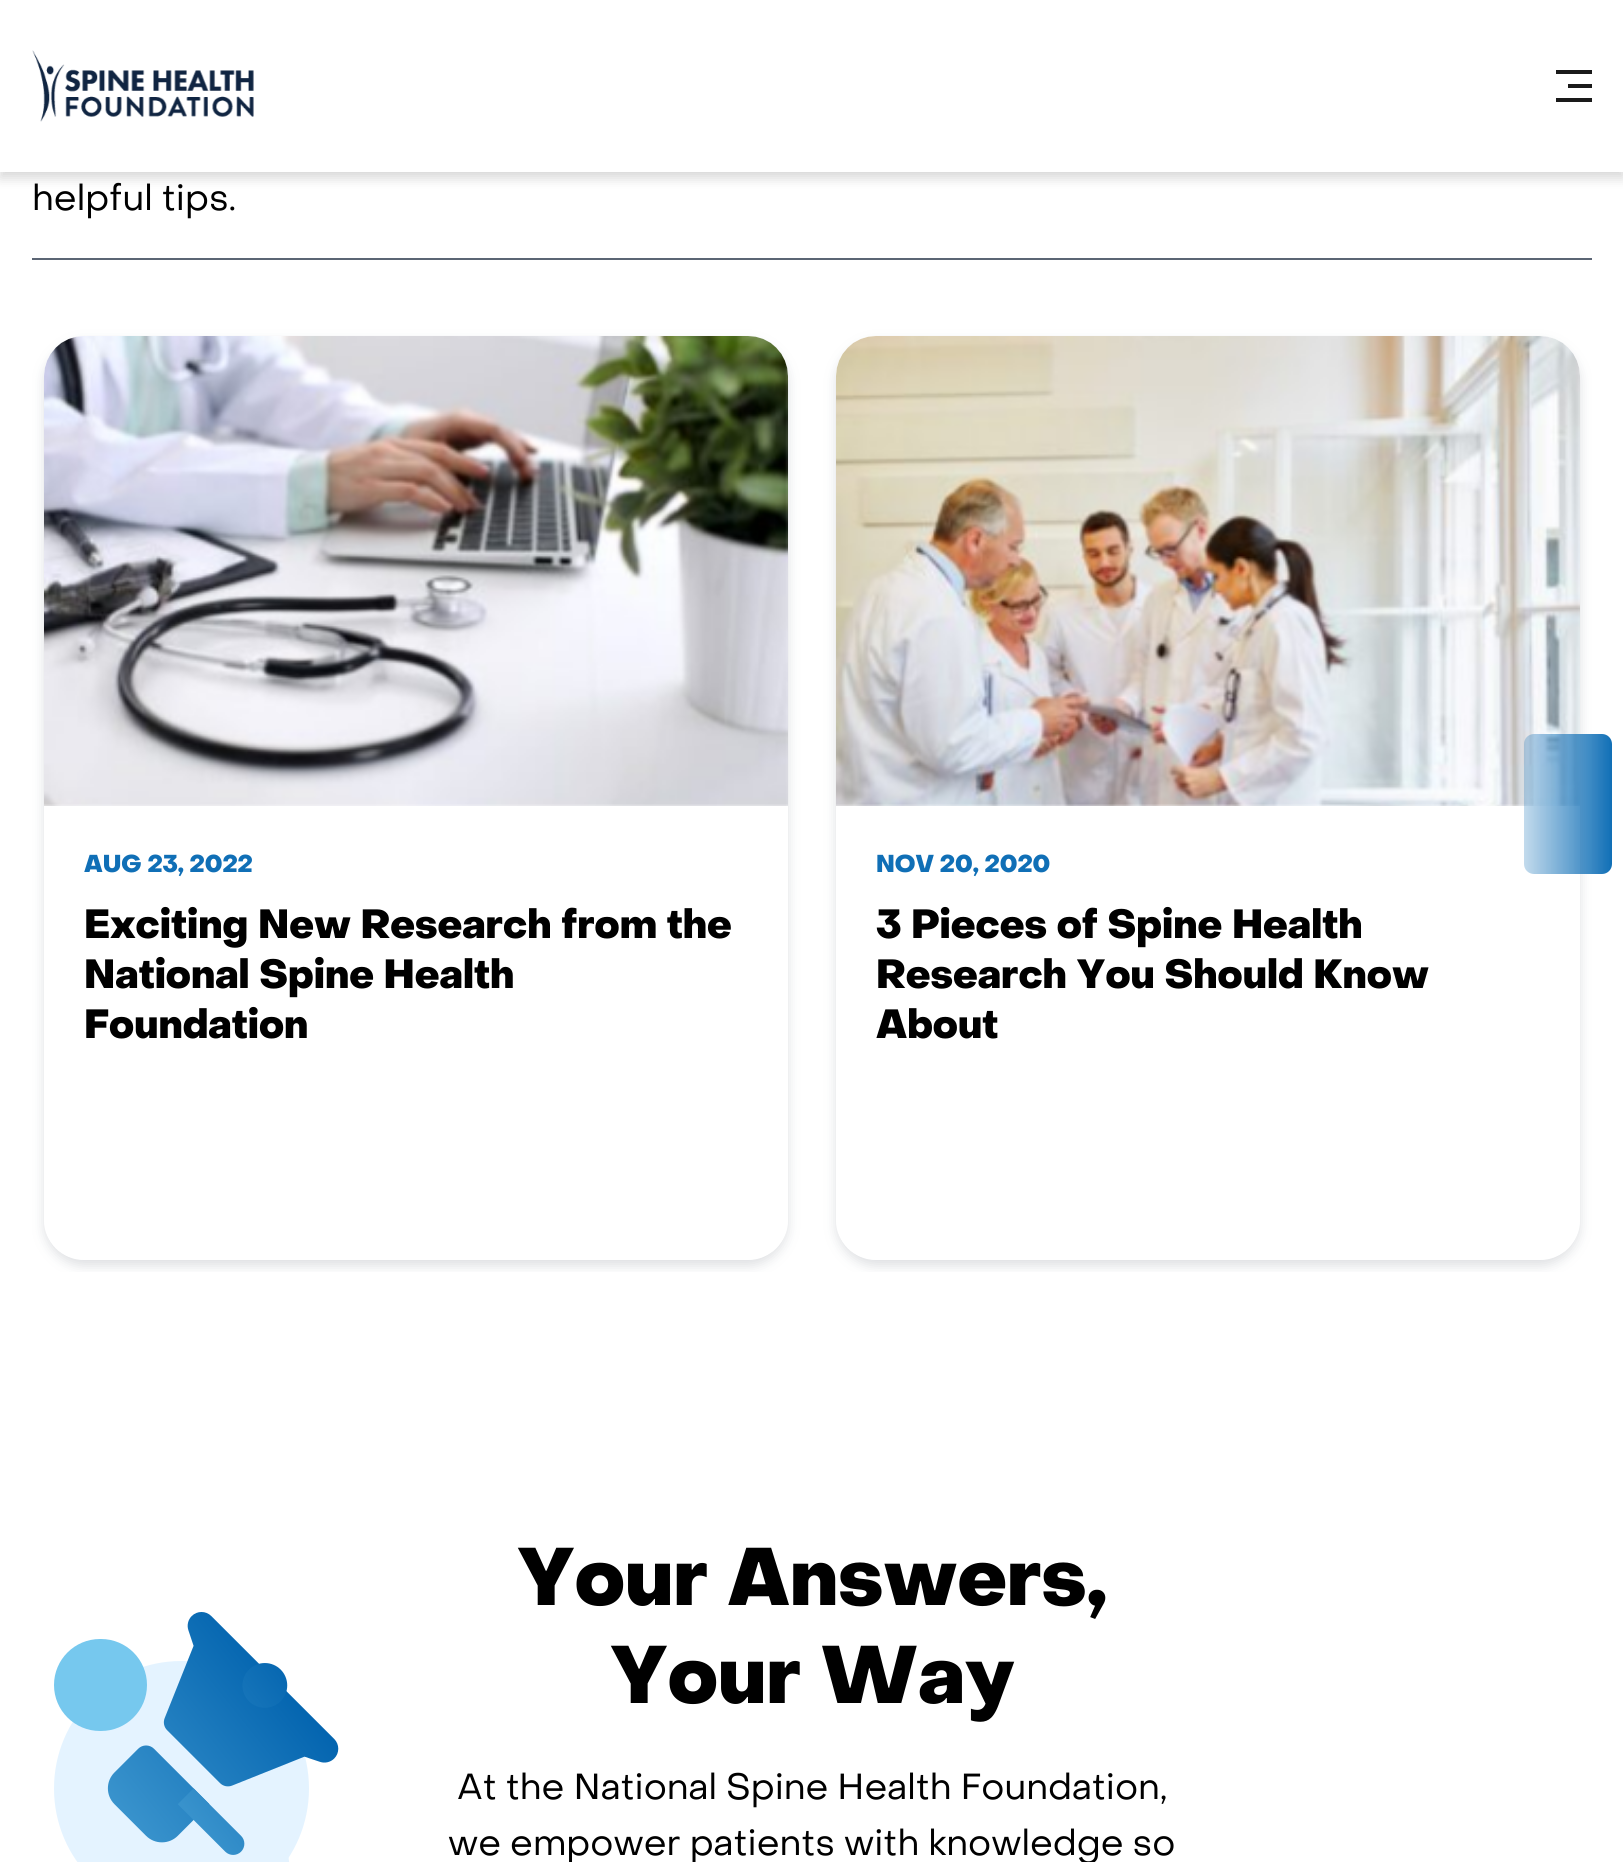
import math
import cairo

surface = cairo.ImageSurface(cairo.FORMAT_RGB24, 1623, 1862)
ctx = cairo.Context(surface)
options = cairo.FontOptions()
options.set_hint_metrics(cairo.HINT_METRICS_OFF)
options.set_hint_style(cairo.HINT_STYLE_NONE)
ctx.set_font_options(options)
ctx.set_miter_limit(4)


def round_rect(x, y, w, h, r):
    ctx.new_sub_path()
    for i, (u, v) in enumerate([(x + w - r, y + h - r), (x + r, y + h - r), (x + r, y + r), (x + w - r, y + r)]):
        ctx.arc(u, v, r, i * math.pi / 2, (i + 1) * math.pi / 2)
    ctx.close_path()


def shadow(x, y, w, h, r, blur, alpha):
    ctx.push_group_with_content(cairo.CONTENT_ALPHA)
    ctx.set_operator(cairo.OPERATOR_SOURCE)
    for i in range(15, -16, -2):
        e = blur * i / 6
        if min(w, h) + 2 * e > 0:
            ctx.set_source_rgba(0, 0, 0, alpha * math.erfc((i - 1) / 8.5) / 2)
            round_rect(x - e, y - e, w + 2 * e, h + 2 * e, max(0, min(r + e + blur * .6, min(w, h) / 2 + e)))
            ctx.fill()
    ctx.mask(ctx.pop_group())


def picture(path, x, y, w, h):
    ctx.save()
    ctx.set_source_surface(cairo.ImageSurface.create_from_png(path), x, y)
    ctx.rectangle(x, y, w, h)
    ctx.fill()
    ctx.restore()


ctx.set_source_rgb(1, 1, 1)
ctx.paint()
ctx.set_source_rgb(0, 0, 0)
shadow(0, 6, 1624, 172, 0, 6, 0.16)
ctx.set_source_rgb(1, 1, 1)
ctx.rectangle(0, 0, 1623, 172)
ctx.fill()
picture("img1.png", 32, 50, 222, 72)
ctx.set_source_rgb(0.102, 0.102, 0.102)
ctx.new_path()
ctx.move_to(1556, 70)
ctx.line_to(1592, 70)
ctx.line_to(1592, 74)
ctx.line_to(1556, 74)
ctx.close_path()
ctx.move_to(1568, 84)
ctx.line_to(1592, 84)
ctx.line_to(1592, 88)
ctx.line_to(1568, 88)
ctx.close_path()
ctx.move_to(1556, 98)
ctx.line_to(1592, 98)
ctx.line_to(1592, 102)
ctx.line_to(1556, 102)
ctx.close_path()
ctx.fill()
ctx.select_font_face("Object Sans")
ctx.set_font_size(36)
ctx.set_source_rgb(0, 0, 0)
ctx.move_to(32, 210)
ctx.show_text("helpful tips.")
ctx.set_source_rgb(0.357, 0.396, 0.455)
ctx.rectangle(32, 258, 1560, 2)
ctx.fill()
ctx.save()
ctx.rectangle(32, 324, 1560, 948)
ctx.clip()
ctx.set_fill_rule(cairo.FILL_RULE_EVEN_ODD)
ctx.new_path()
ctx.move_to(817, 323)
ctx.line_to(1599, 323)
ctx.line_to(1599, 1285)
ctx.line_to(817, 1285)
ctx.close_path()
ctx.move_to(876, 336)
ctx.line_to(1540, 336)
ctx.curve_to(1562, 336, 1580, 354, 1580, 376)
ctx.line_to(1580, 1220)
ctx.curve_to(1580, 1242, 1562, 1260, 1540, 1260)
ctx.line_to(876, 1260)
ctx.curve_to(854, 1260, 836, 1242, 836, 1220)
ctx.line_to(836, 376)
ctx.curve_to(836, 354, 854, 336, 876, 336)
ctx.close_path()
ctx.clip()
ctx.set_source_rgb(0.361, 0.392, 0.451)
shadow(836, 342, 744, 924, 40, 6, 0.2)
ctx.restore()
picture("img3.png", 836, 336, 744, 470)
gradient = cairo.LinearGradient(1612, 804, 1524, 804)
gradient.add_color_stop_rgba(0, 0.063, 0.435, 0.714, 1)
gradient.add_color_stop_rgba(1, 0.063, 0.435, 0.714, 0.25)
ctx.set_source(gradient)
round_rect(1524, 734, 88, 140, 10)
ctx.fill()
ctx.save()
ctx.rectangle(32, 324, 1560, 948)
ctx.clip()
ctx.set_fill_rule(cairo.FILL_RULE_EVEN_ODD)
ctx.new_path()
ctx.move_to(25, 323)
ctx.line_to(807, 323)
ctx.line_to(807, 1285)
ctx.line_to(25, 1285)
ctx.close_path()
ctx.move_to(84, 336)
ctx.line_to(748, 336)
ctx.curve_to(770, 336, 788, 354, 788, 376)
ctx.line_to(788, 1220)
ctx.curve_to(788, 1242, 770, 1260, 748, 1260)
ctx.line_to(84, 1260)
ctx.curve_to(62, 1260, 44, 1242, 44, 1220)
ctx.line_to(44, 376)
ctx.curve_to(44, 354, 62, 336, 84, 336)
ctx.close_path()
ctx.clip()
ctx.set_source_rgb(0.361, 0.392, 0.451)
shadow(44, 342, 744, 924, 40, 6, 0.2)
ctx.restore()
picture("img2.png", 44, 336, 744, 470)
ctx.select_font_face("Object Sans Black")
ctx.set_font_size(24)
ctx.set_source_rgb(0.063, 0.435, 0.714)
ctx.move_to(84, 872)
ctx.show_text("AUG 23, 2022")
ctx.set_font_size(40)
ctx.set_source_rgb(0, 0, 0)
ctx.move_to(84, 938)
ctx.show_text("Exciting New Research from the")
ctx.move_to(84, 988)
ctx.show_text("National Spine Health")
ctx.move_to(84, 1038)
ctx.show_text("Foundation")
ctx.set_font_size(24)
ctx.set_source_rgb(0.063, 0.435, 0.714)
ctx.move_to(876, 872)
ctx.show_text("NOV 20, 2020")
ctx.set_font_size(40)
ctx.set_source_rgb(0, 0, 0)
ctx.move_to(876, 938)
ctx.show_text("3 Pieces of Spine Health")
ctx.move_to(876, 988)
ctx.show_text("Research You Should Know")
ctx.move_to(876, 1038)
ctx.show_text("About")
picture("img4.png", 54, 1612, 285, 250)
ctx.set_font_size(80)
ctx.move_to(517, 1605)
ctx.show_text("Your Answers,")
ctx.move_to(610, 1703)
ctx.show_text("Your Way")
ctx.select_font_face("Object Sans")
ctx.set_font_size(36)
ctx.move_to(457, 1799)
ctx.show_text("At the National Spine Health Foundation,")
ctx.move_to(448, 1855)
ctx.show_text("we empower patients with knowledge so")
surface.write_to_png("page.png")
